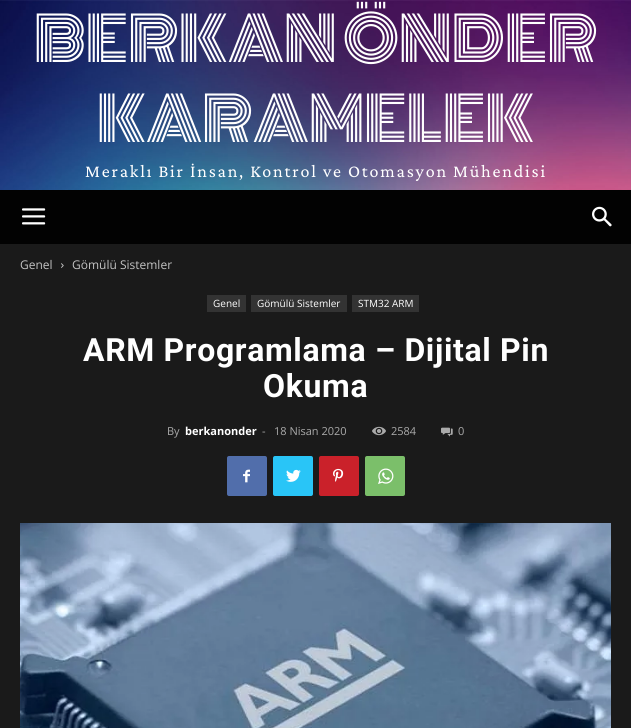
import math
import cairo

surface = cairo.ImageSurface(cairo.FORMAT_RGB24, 631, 728)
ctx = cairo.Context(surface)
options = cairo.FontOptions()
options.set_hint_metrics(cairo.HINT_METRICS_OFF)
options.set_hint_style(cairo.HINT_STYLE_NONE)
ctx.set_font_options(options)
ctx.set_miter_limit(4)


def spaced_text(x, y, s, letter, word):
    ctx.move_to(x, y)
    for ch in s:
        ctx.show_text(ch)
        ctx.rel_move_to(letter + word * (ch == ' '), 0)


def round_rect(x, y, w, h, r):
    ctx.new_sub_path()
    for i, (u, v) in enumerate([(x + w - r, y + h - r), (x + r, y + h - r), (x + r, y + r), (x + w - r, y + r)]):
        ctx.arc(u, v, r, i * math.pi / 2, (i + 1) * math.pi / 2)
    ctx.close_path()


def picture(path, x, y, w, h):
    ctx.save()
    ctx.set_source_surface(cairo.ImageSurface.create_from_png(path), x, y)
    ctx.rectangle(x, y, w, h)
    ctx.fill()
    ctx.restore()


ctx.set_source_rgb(0.102, 0.102, 0.102)
ctx.paint()
picture("img1.png", 0, 0, 631, 190)
ctx.select_font_face("Monoton")
ctx.set_font_size(60)
ctx.set_source_rgb(1, 1, 1)
ctx.move_to(34, 62)
ctx.show_text("BERKAN ÖNDER")
ctx.move_to(97, 142)
ctx.show_text("KARAMELEK")
ctx.select_font_face("Crimson Pro")
ctx.set_font_size(18)
spaced_text(85, 177, "Meraklı Bir İnsan, Kontrol ve Otomasyon Mühendisi", 1.8, 0)
ctx.set_source_rgb(0.008, 0.008, 0.008)
ctx.rectangle(0, 190, 631, 54)
ctx.fill()
picture("img2.png", 22, 208, 24, 17)
picture("img3.png", 592, 206, 20, 21)
ctx.select_font_face("Open Sans")
ctx.set_font_size(12)
ctx.set_source_rgb(0.765, 0.765, 0.765)
ctx.move_to(20, 269)
ctx.show_text("Genel")
picture("img4.png", 61, 263, 3, 5)
ctx.move_to(72, 269)
ctx.show_text("Gömülü Sistemler")
ctx.set_source_rgb(0.2, 0.2, 0.2)
ctx.rectangle(207, 295, 39, 17)
ctx.fill()
ctx.set_font_size(10)
ctx.set_source_rgb(1, 1, 1)
ctx.move_to(213, 307)
ctx.show_text("Genel")
ctx.set_source_rgb(0.2, 0.2, 0.2)
ctx.rectangle(251, 295, 96, 17)
ctx.fill()
ctx.set_source_rgb(1, 1, 1)
ctx.move_to(257, 307)
ctx.show_text("Gömülü Sistemler")
ctx.set_source_rgb(0.2, 0.2, 0.2)
ctx.rectangle(352, 295, 67, 17)
ctx.fill()
ctx.set_source_rgb(1, 1, 1)
ctx.move_to(358, 307)
ctx.show_text("STM32 ARM")
ctx.select_font_face("Roboto", cairo.FONT_SLANT_NORMAL, cairo.FONT_WEIGHT_BOLD)
ctx.set_font_size(32)
spaced_text(83, 361, "ARM Programlama – Dijital Pin", 0.65, 0)
spaced_text(263, 397, "Okuma", 0.65, 0)
ctx.select_font_face("Open Sans")
ctx.set_font_size(11)
ctx.set_source_rgb(0.667, 0.667, 0.667)
ctx.move_to(167, 435)
ctx.show_text("By")
ctx.select_font_face("Open Sans", cairo.FONT_SLANT_NORMAL, cairo.FONT_WEIGHT_BOLD)
ctx.set_source_rgb(1, 1, 1)
ctx.move_to(185, 435)
ctx.show_text("berkanonder")
ctx.select_font_face("Open Sans")
ctx.set_source_rgb(0.667, 0.667, 0.667)
ctx.move_to(262, 435)
ctx.show_text("-")
ctx.move_to(274, 435)
ctx.show_text("18 Nisan 2020")
picture("img5.png", 372, 426, 14, 10)
ctx.move_to(391, 435)
ctx.show_text("2584")
picture("img6.png", 441, 427, 12, 10)
ctx.move_to(458, 435)
ctx.show_text("0")
ctx.set_source_rgb(0.318, 0.431, 0.671)
round_rect(227, 456, 40, 40, 2)
ctx.fill()
picture("img7.png", 243, 469, 7, 14)
ctx.set_source_rgb(0.161, 0.773, 0.965)
round_rect(273, 456, 40, 40, 2)
ctx.fill()
picture("img8.png", 286, 469, 15, 13)
ctx.set_source_rgb(0.792, 0.129, 0.165)
round_rect(319, 456, 40, 40, 2)
ctx.fill()
picture("img9.png", 333, 468, 11, 14)
ctx.set_source_rgb(0.482, 0.749, 0.416)
round_rect(365, 456, 40, 40, 2)
ctx.fill()
picture("img10.png", 378, 468, 16, 16)
picture("img11.png", 20, 523, 591, 205)
surface.write_to_png("page.png")
